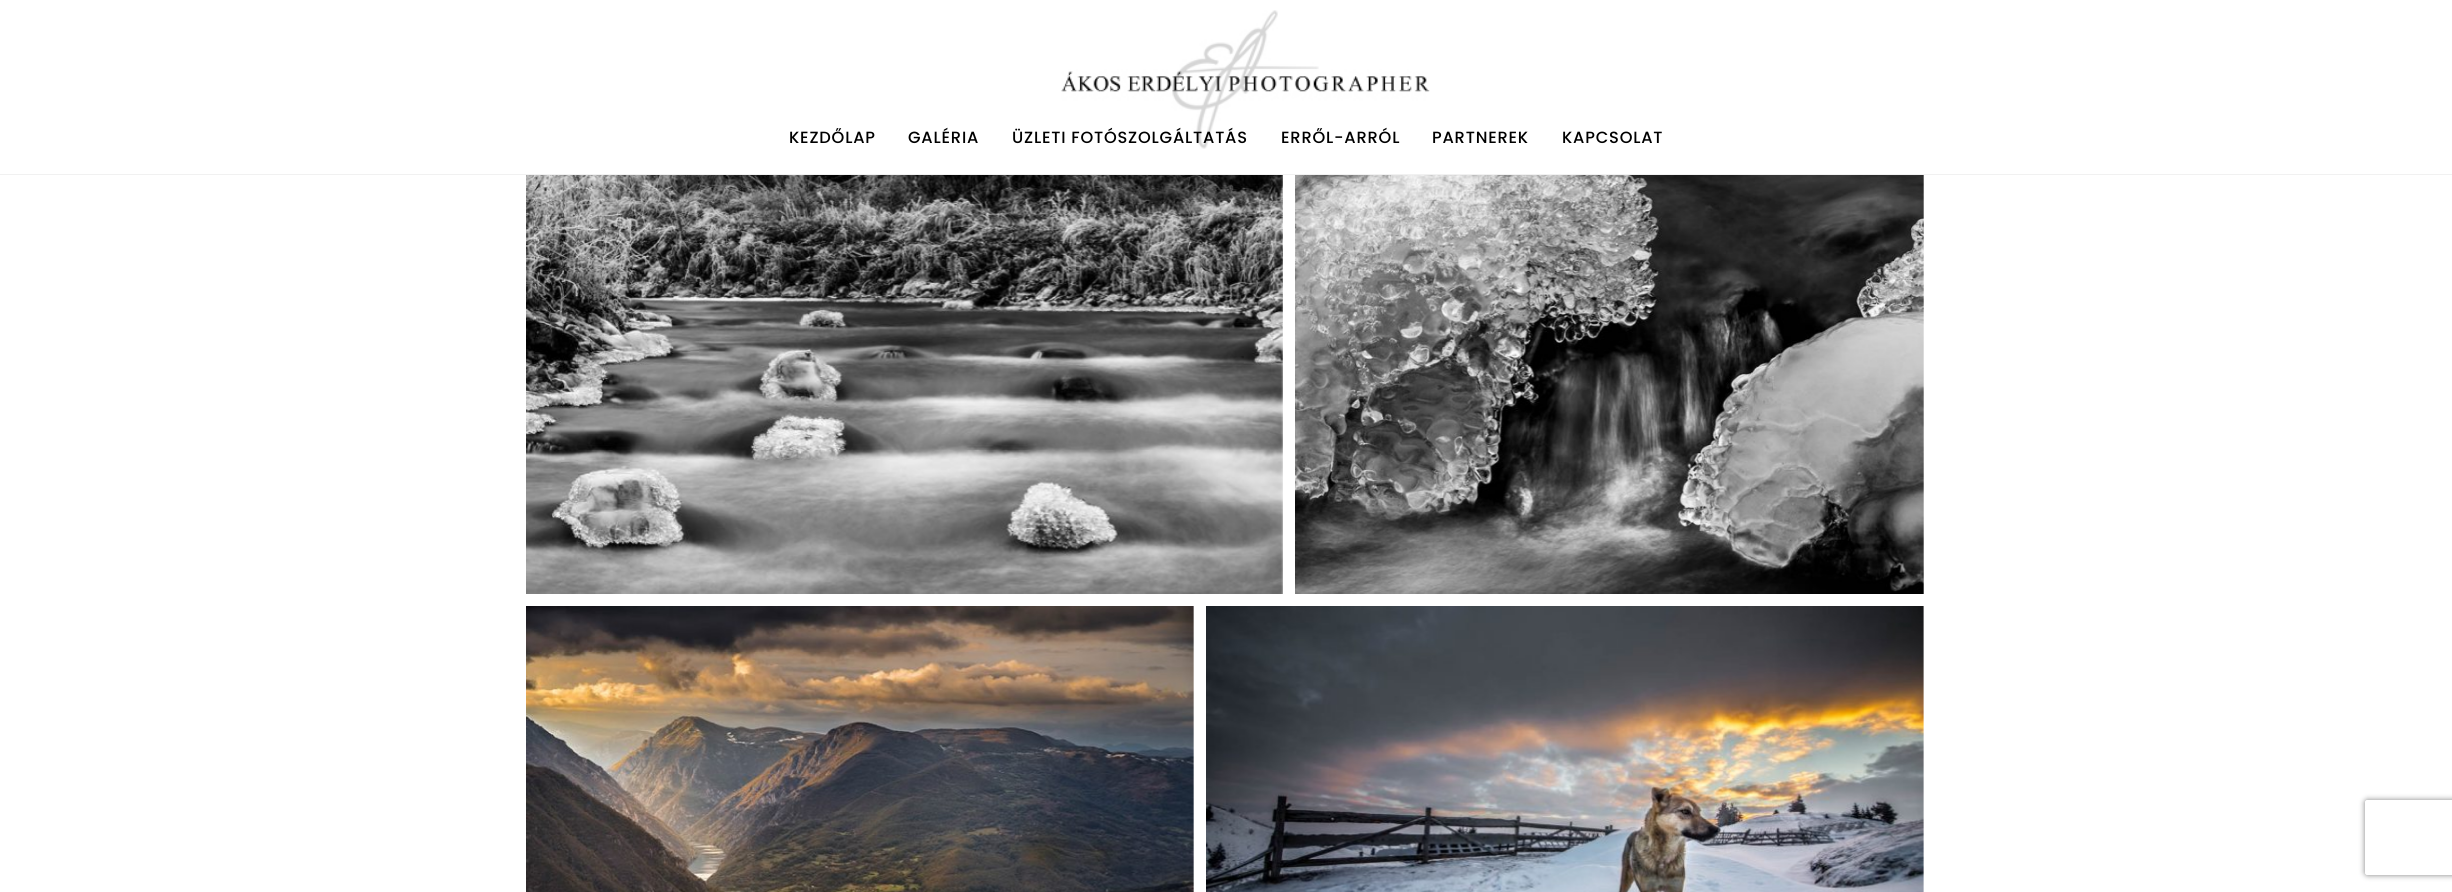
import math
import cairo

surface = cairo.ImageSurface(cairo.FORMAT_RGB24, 2452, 892)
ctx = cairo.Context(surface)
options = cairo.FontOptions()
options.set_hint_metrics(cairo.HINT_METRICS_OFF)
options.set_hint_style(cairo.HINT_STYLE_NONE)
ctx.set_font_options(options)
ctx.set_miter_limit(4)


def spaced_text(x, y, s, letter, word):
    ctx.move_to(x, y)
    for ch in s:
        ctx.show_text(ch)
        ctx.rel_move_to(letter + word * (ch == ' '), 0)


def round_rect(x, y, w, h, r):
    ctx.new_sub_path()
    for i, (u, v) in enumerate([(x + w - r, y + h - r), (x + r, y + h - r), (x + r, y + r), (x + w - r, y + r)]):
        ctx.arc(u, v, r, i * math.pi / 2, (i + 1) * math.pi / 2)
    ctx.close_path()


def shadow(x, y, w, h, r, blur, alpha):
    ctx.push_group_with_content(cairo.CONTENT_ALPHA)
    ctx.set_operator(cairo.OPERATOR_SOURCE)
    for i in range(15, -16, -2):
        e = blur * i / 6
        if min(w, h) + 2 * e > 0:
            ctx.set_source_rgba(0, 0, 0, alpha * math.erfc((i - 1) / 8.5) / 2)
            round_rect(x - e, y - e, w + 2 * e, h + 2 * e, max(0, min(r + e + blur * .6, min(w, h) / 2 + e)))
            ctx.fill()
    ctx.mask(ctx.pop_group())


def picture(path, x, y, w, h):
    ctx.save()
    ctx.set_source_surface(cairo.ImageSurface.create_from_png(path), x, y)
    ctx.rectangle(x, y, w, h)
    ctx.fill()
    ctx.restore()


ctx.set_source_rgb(1, 1, 1)
ctx.paint()
ctx.set_source_rgb(0.945, 0.945, 0.945)
ctx.rectangle(0, 174, 2452, 1)
ctx.fill()
picture("img1.png", 1061, 10, 369, 139)
ctx.select_font_face("Poppins Medium")
ctx.set_font_size(16.25)
ctx.set_source_rgb(0, 0, 0)
spaced_text(789, 143, "KEZDŐLAP", 0.8, 0)
spaced_text(908, 143, "GALÉRIA", 0.8, 0)
spaced_text(1012, 143, "ÜZLETI FOTÓSZOLGÁLTATÁS", 0.8, 0)
spaced_text(1281, 143, "ERRŐL-ARRÓL", 0.8, 0)
spaced_text(1432, 143, "PARTNEREK", 0.8, 0)
spaced_text(1562, 143, "KAPCSOLAT", 0.8, 0)
picture("img2.png", 526, 175, 757, 419)
picture("img3.png", 1295, 175, 629, 419)
picture("img4.png", 526, 606, 668, 286)
picture("img5.png", 1206, 606, 718, 286)
ctx.save()
ctx.set_fill_rule(cairo.FILL_RULE_EVEN_ODD)
ctx.new_path()
ctx.move_to(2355, 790)
ctx.line_to(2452, 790)
ctx.line_to(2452, 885)
ctx.line_to(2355, 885)
ctx.close_path()
ctx.move_to(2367.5, 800)
ctx.line_to(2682.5, 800)
ctx.curve_to(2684, 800, 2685, 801, 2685, 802.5)
ctx.line_to(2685, 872.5)
ctx.curve_to(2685, 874, 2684, 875, 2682.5, 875)
ctx.line_to(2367.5, 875)
ctx.curve_to(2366, 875, 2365, 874, 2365, 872.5)
ctx.line_to(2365, 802.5)
ctx.curve_to(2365, 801, 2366, 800, 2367.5, 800)
ctx.close_path()
ctx.clip()
ctx.set_source_rgb(0.502, 0.502, 0.502)
shadow(2365, 800, 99, 75, 2.5, 3, 1)
ctx.restore()
surface.write_to_png("page.png")
